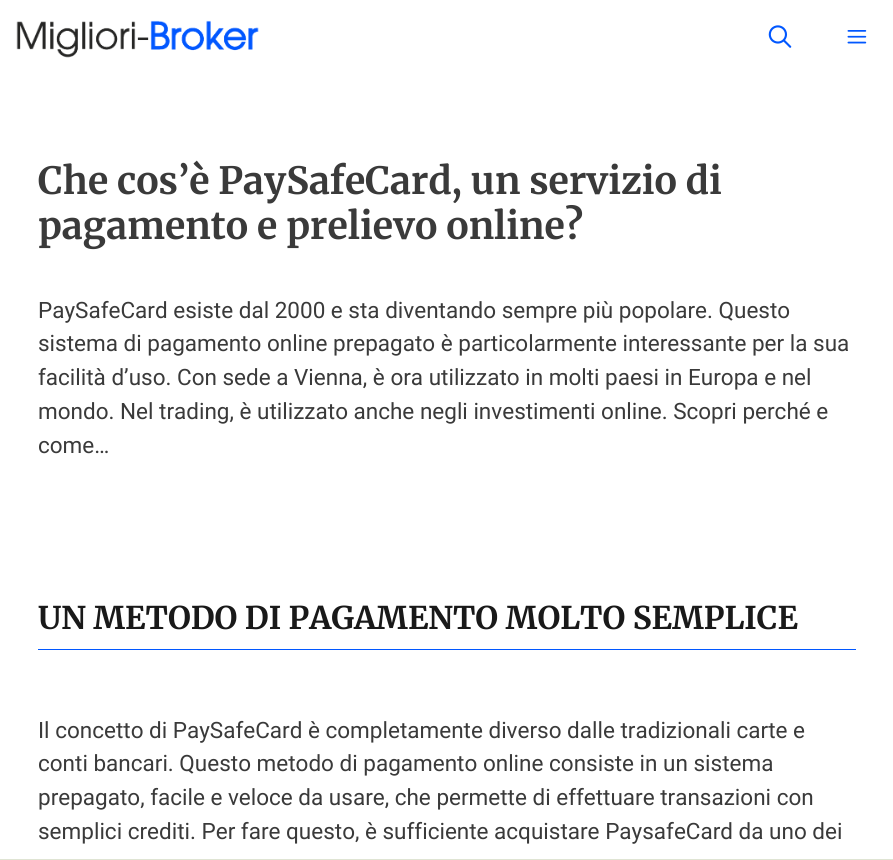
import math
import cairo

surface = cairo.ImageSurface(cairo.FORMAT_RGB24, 893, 860)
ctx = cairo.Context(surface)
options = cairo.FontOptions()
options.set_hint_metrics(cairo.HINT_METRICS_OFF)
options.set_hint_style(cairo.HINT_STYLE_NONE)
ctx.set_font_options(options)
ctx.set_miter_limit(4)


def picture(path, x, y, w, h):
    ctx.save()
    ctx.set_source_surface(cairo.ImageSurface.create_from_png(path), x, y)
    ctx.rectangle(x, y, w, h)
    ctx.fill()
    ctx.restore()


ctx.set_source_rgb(1, 1, 1)
ctx.paint()
picture("img1.png", 16, 20, 243, 38)
picture("img2.png", 768, 25, 24, 23)
picture("img3.png", 847, 30, 20, 14)
ctx.select_font_face("Merriweather", cairo.FONT_SLANT_NORMAL, cairo.FONT_WEIGHT_BOLD)
ctx.set_font_size(37.5)
ctx.set_source_rgb(0.227, 0.227, 0.227)
ctx.move_to(38, 194)
ctx.show_text("Che cos’è PaySafeCard, un servizio di")
ctx.move_to(38, 239)
ctx.show_text("pagamento e prelievo online?")
ctx.select_font_face("Roboto")
ctx.set_font_size(22.5)
ctx.move_to(38, 318)
ctx.show_text("PaySafeCard esiste dal 2000 e sta diventando sempre più popolare. Questo")
ctx.move_to(38, 351)
ctx.show_text("sistema di pagamento online prepagato è particolarmente interessante per la sua")
ctx.move_to(38, 385)
ctx.show_text("facilità d’uso. Con sede a Vienna, è ora utilizzato in molti paesi in Europa e nel")
ctx.move_to(38, 419)
ctx.show_text("mondo. Nel trading, è utilizzato anche negli investimenti online. Scopri perché e")
ctx.move_to(38, 453)
ctx.show_text("come…")
ctx.set_source_rgb(0.004, 0.341, 1)
ctx.rectangle(38, 649, 818, 1)
ctx.fill()
ctx.select_font_face("Merriweather", cairo.FONT_SLANT_NORMAL, cairo.FONT_WEIGHT_BOLD)
ctx.set_font_size(31.25)
ctx.set_source_rgb(0.098, 0.098, 0.098)
ctx.move_to(38, 629)
ctx.show_text("UN METODO DI PAGAMENTO MOLTO SEMPLICE")
ctx.select_font_face("Roboto")
ctx.set_font_size(22.5)
ctx.set_source_rgb(0.227, 0.227, 0.227)
ctx.move_to(38, 738)
ctx.show_text("Il concetto di PaySafeCard è completamente diverso dalle tradizionali carte e")
ctx.move_to(38, 771)
ctx.show_text("conti bancari. Questo metodo di pagamento online consiste in un sistema")
ctx.move_to(38, 805)
ctx.show_text("prepagato, facile e veloce da usare, che permette di effettuare transazioni con")
ctx.move_to(38, 839)
ctx.show_text("semplici crediti. Per fare questo, è sufficiente acquistare PaysafeCard da uno dei")
ctx.set_source_rgba(0.867, 0.886, 0.816, 0.94)
ctx.rectangle(0, 859, 893, 1)
ctx.fill()
surface.write_to_png("page.png")
